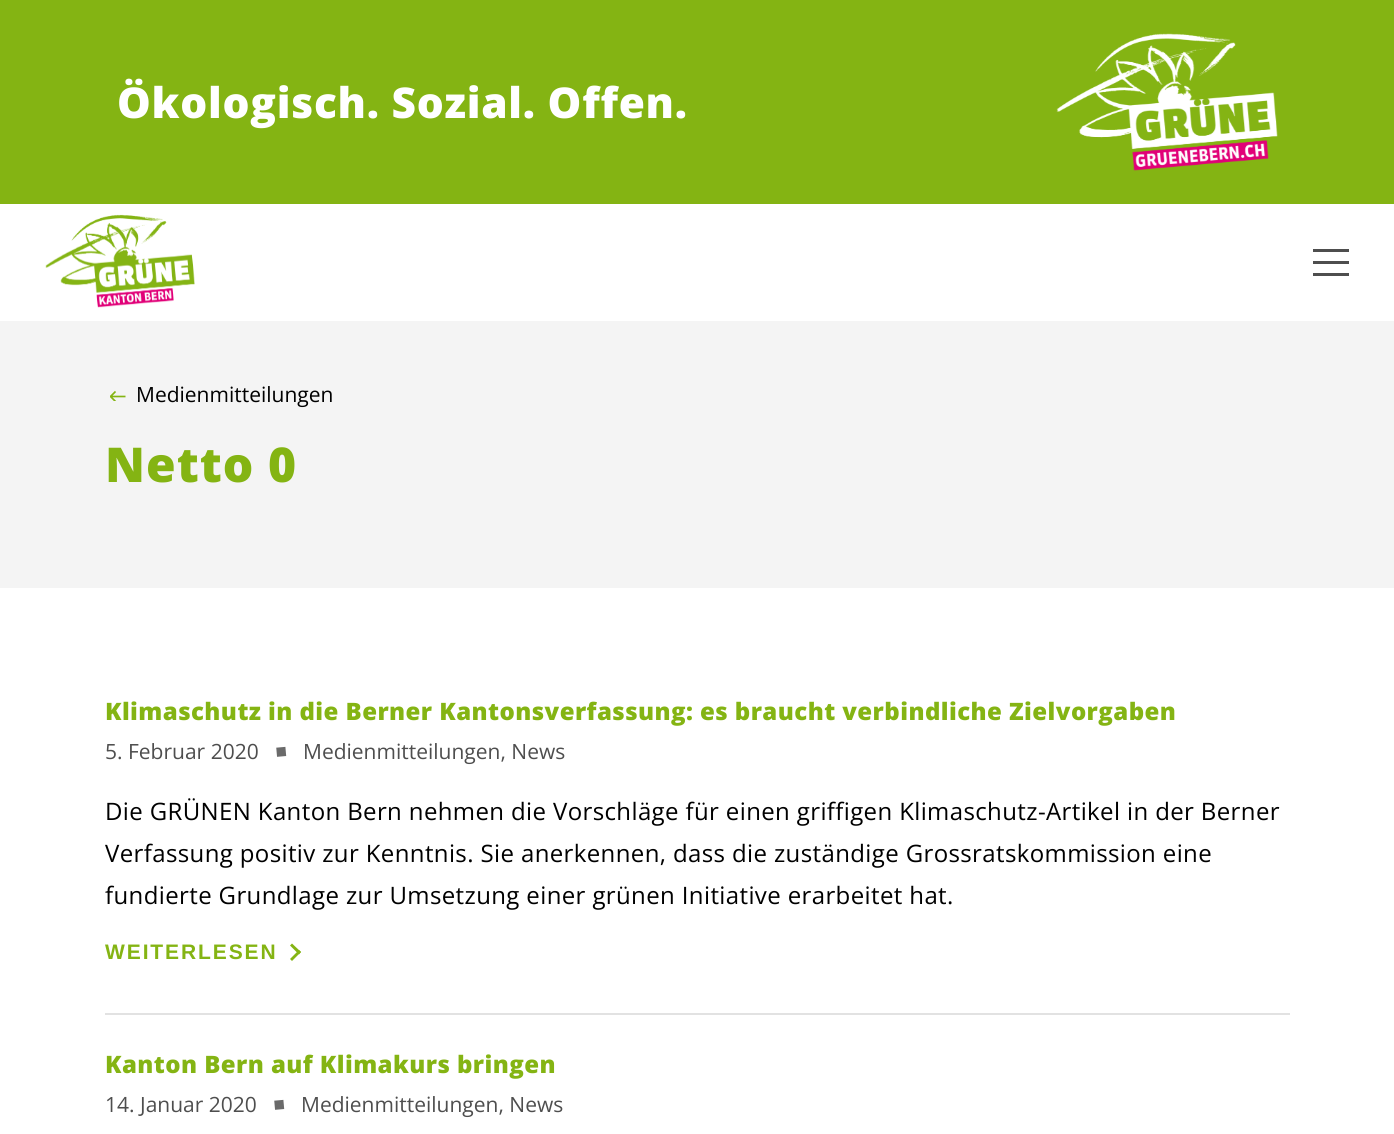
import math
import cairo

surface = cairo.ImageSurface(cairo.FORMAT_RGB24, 1394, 1134)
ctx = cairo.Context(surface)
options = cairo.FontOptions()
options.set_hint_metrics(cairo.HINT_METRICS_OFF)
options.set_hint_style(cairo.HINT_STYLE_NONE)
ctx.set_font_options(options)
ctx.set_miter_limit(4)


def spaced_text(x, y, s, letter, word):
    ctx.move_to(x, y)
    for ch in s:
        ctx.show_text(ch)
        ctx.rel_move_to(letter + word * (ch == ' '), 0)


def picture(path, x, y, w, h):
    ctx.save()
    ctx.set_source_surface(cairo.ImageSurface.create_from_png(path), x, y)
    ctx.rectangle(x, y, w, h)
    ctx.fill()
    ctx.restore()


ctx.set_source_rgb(1, 1, 1)
ctx.paint()
ctx.set_source_rgb(0.518, 0.706, 0.078)
ctx.rectangle(0, 0, 1394, 204)
ctx.fill()
ctx.select_font_face("Open Sans ExtraBold")
ctx.set_font_size(42.4)
ctx.set_source_rgb(1, 1, 1)
spaced_text(117, 118, "Ökologisch. Sozial. Offen.", 0.75, 0)
picture("img1.png", 1056, 33, 222, 138)
picture("img2.png", 45, 214, 150, 94)
ctx.set_source_rgb(0.306, 0.306, 0.306)
ctx.rectangle(1313, 261, 36, 3)
ctx.fill()
ctx.rectangle(1313, 249, 36, 3)
ctx.fill()
ctx.rectangle(1313, 273, 36, 3)
ctx.fill()
ctx.set_source_rgb(0.957, 0.957, 0.957)
ctx.rectangle(0, 321, 1394, 267)
ctx.fill()
ctx.save()
ctx.rectangle(110, 390, 16, 11)
ctx.clip()
ctx.new_path()
ctx.move_to(115.5, 401.5)
ctx.line_to(110.5, 396.5)
ctx.line_to(115.5, 391.5)
ctx.move_to(110.5, 396.5)
ctx.line_to(125.5, 396.5)
ctx.set_source_rgb(0.518, 0.706, 0.078)
ctx.set_line_width(1.7)
ctx.stroke()
ctx.restore()
ctx.select_font_face("Open Sans")
ctx.set_font_size(21)
ctx.set_source_rgb(0, 0, 0)
ctx.move_to(136, 402)
ctx.show_text("Medienmitteilungen")
ctx.select_font_face("Open Sans ExtraBold")
ctx.set_font_size(48)
ctx.set_source_rgb(0.518, 0.706, 0.078)
spaced_text(105, 482, "Netto 0", 1, 0)
ctx.set_source_rgb(0.886, 0.886, 0.886)
ctx.rectangle(105, 1013, 1185, 2)
ctx.fill()
ctx.set_font_size(24)
ctx.set_source_rgb(0.518, 0.706, 0.078)
spaced_text(105, 720, "Klimaschutz in die Berner Kantonsverfassung: es braucht verbindliche Zielvorgaben", 0.43, 0)
ctx.select_font_face("Open Sans")
ctx.set_font_size(21)
ctx.set_source_rgb(0.306, 0.306, 0.306)
ctx.move_to(105, 759)
ctx.show_text("5. Februar 2020")
ctx.select_font_face("Liberation Sans")
ctx.set_font_size(19)
ctx.set_source_rgb(0.416, 0.416, 0.416)
ctx.save()
ctx.translate(276, 758)
ctx.rotate(-5 * math.pi / 180)
ctx.move_to(0, 0)
ctx.show_text("■")
ctx.restore()
ctx.select_font_face("Open Sans")
ctx.set_font_size(21)
ctx.set_source_rgb(0.306, 0.306, 0.306)
ctx.move_to(303, 759)
ctx.show_text("Medienmitteilungen, News")
ctx.set_font_size(24)
ctx.set_source_rgb(0, 0, 0)
spaced_text(105, 820, "Die GRÜNEN Kanton Bern nehmen die Vorschläge für einen griffigen Klimaschutz-Artikel in der Berner", 0.38, 0)
spaced_text(105, 862, "Verfassung positiv zur Kenntnis. Sie anerkennen, dass die zuständige Grossratskommission eine", 0.38, 0)
spaced_text(105, 904, "fundierte Grundlage zur Umsetzung einer grünen Initiative erarbeitet hat.", 0.38, 0)
ctx.select_font_face("Liberation Sans", cairo.FONT_SLANT_NORMAL, cairo.FONT_WEIGHT_BOLD)
ctx.set_font_size(21)
ctx.set_source_rgb(0.518, 0.706, 0.078)
spaced_text(105, 959, "WEITERLESEN", 1.9, 0)
ctx.new_path()
ctx.move_to(292, 943.5)
ctx.line_to(301, 952)
ctx.line_to(299, 954.5)
ctx.line_to(290, 945.5)
ctx.close_path()
ctx.fill()
ctx.new_path()
ctx.move_to(299, 950)
ctx.line_to(301, 952)
ctx.line_to(292, 961)
ctx.line_to(290, 959)
ctx.close_path()
ctx.fill()
ctx.select_font_face("Open Sans ExtraBold")
ctx.set_font_size(24)
spaced_text(105, 1073, "Kanton Bern auf Klimakurs bringen", 0.43, 0)
ctx.select_font_face("Open Sans")
ctx.set_font_size(21)
ctx.set_source_rgb(0.306, 0.306, 0.306)
ctx.move_to(105, 1112)
ctx.show_text("14. Januar 2020")
ctx.select_font_face("Liberation Sans")
ctx.set_font_size(19)
ctx.set_source_rgb(0.416, 0.416, 0.416)
ctx.save()
ctx.translate(274, 1111)
ctx.rotate(-5 * math.pi / 180)
ctx.move_to(0, 0)
ctx.show_text("■")
ctx.restore()
ctx.select_font_face("Open Sans")
ctx.set_font_size(21)
ctx.set_source_rgb(0.306, 0.306, 0.306)
ctx.move_to(301, 1112)
ctx.show_text("Medienmitteilungen, News")
surface.write_to_png("page.png")
